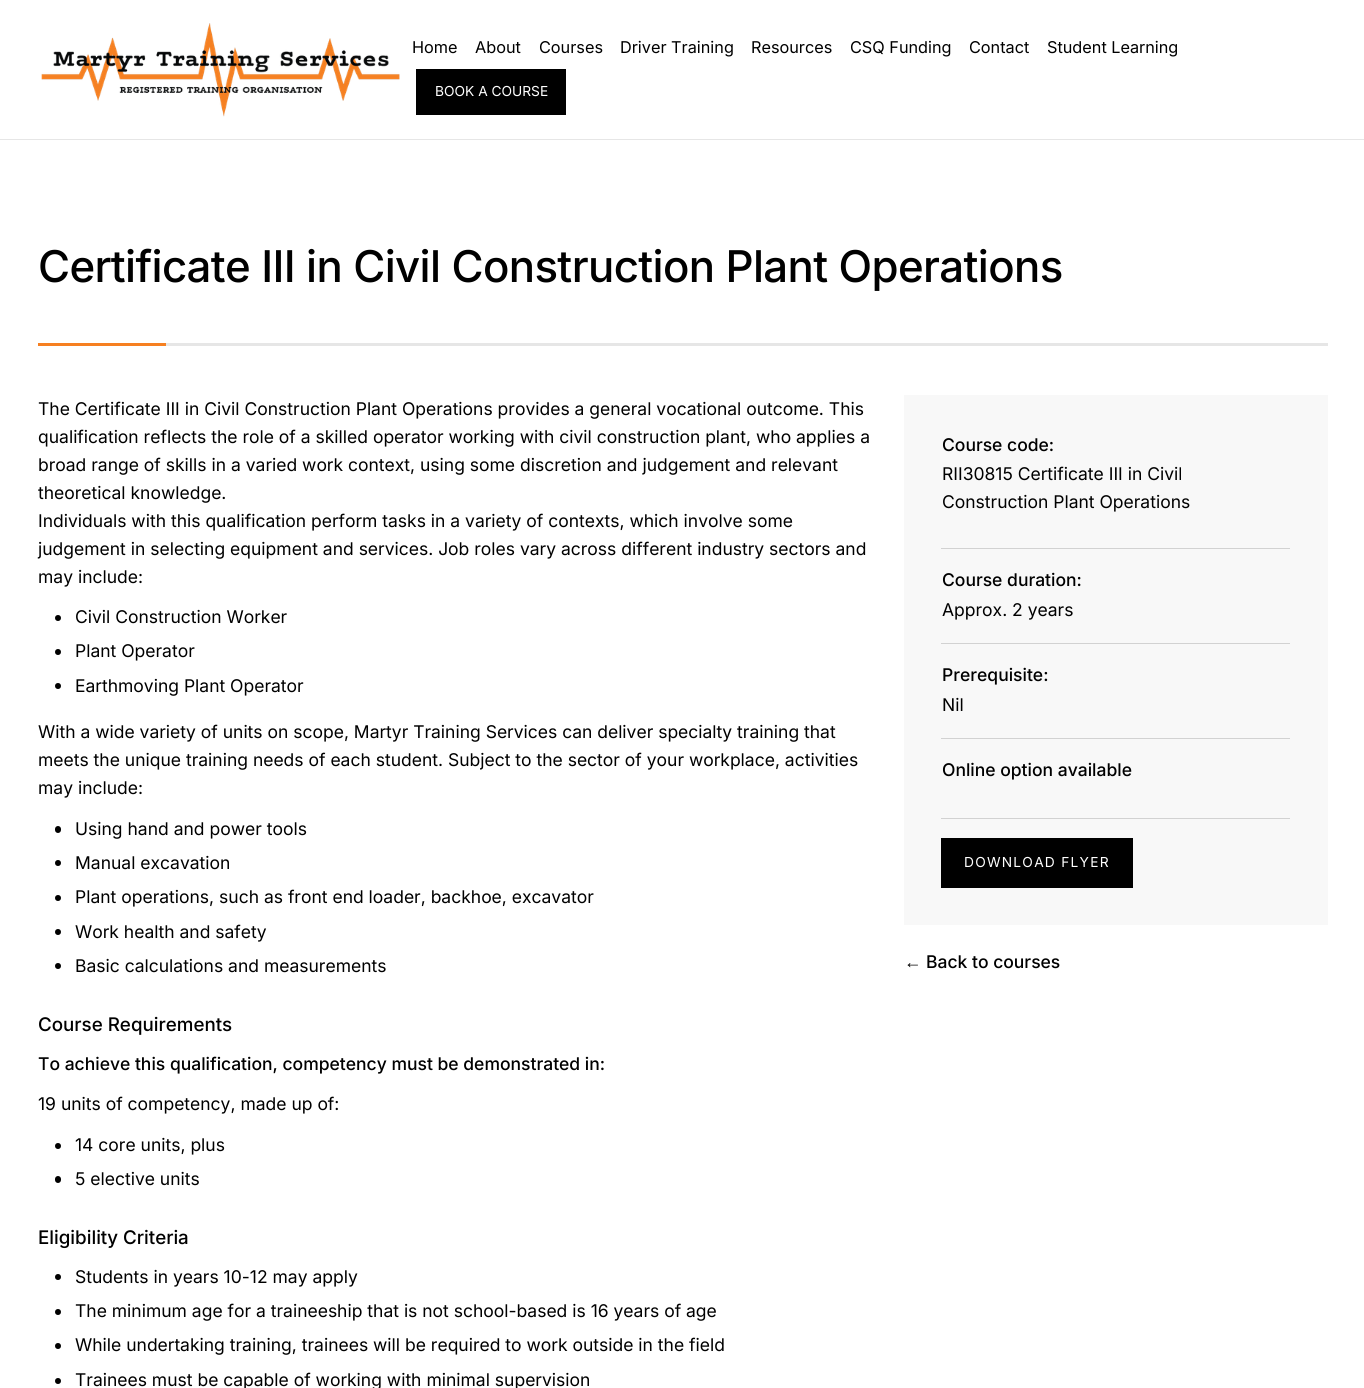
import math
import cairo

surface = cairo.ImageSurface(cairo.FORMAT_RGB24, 1364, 1388)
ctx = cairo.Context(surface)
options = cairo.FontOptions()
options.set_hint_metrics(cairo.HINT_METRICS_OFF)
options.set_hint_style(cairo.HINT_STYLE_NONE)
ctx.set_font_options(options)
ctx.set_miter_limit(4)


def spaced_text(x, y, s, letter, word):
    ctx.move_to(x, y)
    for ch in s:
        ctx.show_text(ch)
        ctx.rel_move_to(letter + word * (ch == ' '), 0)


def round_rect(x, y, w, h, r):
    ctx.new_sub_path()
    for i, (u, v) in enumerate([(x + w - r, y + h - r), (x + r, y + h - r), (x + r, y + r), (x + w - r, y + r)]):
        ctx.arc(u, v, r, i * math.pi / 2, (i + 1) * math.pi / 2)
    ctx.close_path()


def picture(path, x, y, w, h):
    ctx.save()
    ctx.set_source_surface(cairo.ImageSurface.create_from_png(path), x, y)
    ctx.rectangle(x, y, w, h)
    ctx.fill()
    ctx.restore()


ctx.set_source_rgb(1, 1, 1)
ctx.paint()
ctx.set_source_rgb(0.902, 0.902, 0.902)
ctx.rectangle(0, 139, 1364, 1)
ctx.fill()
picture("img1.png", 41, 23, 359, 94)
ctx.select_font_face("Inter")
ctx.set_font_size(16.25)
ctx.set_source_rgb(0, 0, 0)
ctx.move_to(412, 53)
ctx.show_text("Home")
ctx.move_to(475, 53)
ctx.show_text("About")
ctx.move_to(539, 53)
ctx.show_text("Courses")
ctx.move_to(620, 53)
ctx.show_text("Driver Training")
ctx.move_to(751, 53)
ctx.show_text("Resources")
ctx.move_to(850, 53)
ctx.show_text("CSQ Funding")
ctx.move_to(969, 53)
ctx.show_text("Contact")
ctx.move_to(1047, 53)
ctx.show_text("Student Learning")
ctx.rectangle(416, 69, 150, 46)
ctx.fill()
ctx.set_font_size(13.75)
ctx.set_source_rgb(1, 1, 1)
ctx.move_to(435, 96)
ctx.show_text("BOOK A COURSE")
ctx.select_font_face("Inter Medium")
ctx.set_font_size(43.75)
ctx.set_source_rgb(0, 0, 0)
spaced_text(38, 282, "Certificate III in Civil Construction Plant Operations", -0.62, 0)
ctx.set_source_rgb(0.961, 0.502, 0.129)
ctx.rectangle(38, 343, 128, 3)
ctx.fill()
ctx.set_source_rgb(0.902, 0.902, 0.902)
ctx.rectangle(166, 343, 1162, 3)
ctx.fill()
ctx.select_font_face("Inter")
ctx.set_font_size(17.5)
ctx.set_source_rgb(0, 0, 0)
ctx.move_to(38, 415)
ctx.show_text("The Certificate III in Civil Construction Plant Operations provides a general vocational outcome. This")
ctx.move_to(38, 443)
ctx.show_text("qualification reflects the role of a skilled operator working with civil construction plant, who applies a")
ctx.move_to(38, 471)
ctx.show_text("broad range of skills in a varied work context, using some discretion and judgement and relevant")
ctx.move_to(38, 499)
ctx.show_text("theoretical knowledge.")
ctx.move_to(38, 527)
ctx.show_text("Individuals with this qualification perform tasks in a variety of contexts, which involve some")
ctx.move_to(38, 555)
ctx.show_text("judgement in selecting equipment and services. Job roles vary across different industry sectors and")
ctx.move_to(38, 583)
ctx.show_text("may include:")
ctx.new_path()
ctx.arc(58, 618, 3, 0, 2 * math.pi)
ctx.fill()
ctx.move_to(75, 623)
ctx.show_text("Civil Construction Worker")
ctx.new_path()
ctx.arc(58, 652, 3, 0, 2 * math.pi)
ctx.fill()
ctx.move_to(75, 657)
ctx.show_text("Plant Operator")
ctx.new_path()
ctx.arc(58, 686, 3, 0, 2 * math.pi)
ctx.fill()
ctx.move_to(75, 692)
ctx.show_text("Earthmoving Plant Operator")
ctx.move_to(38, 738)
ctx.show_text("With a wide variety of units on scope, Martyr Training Services can deliver specialty training that")
ctx.move_to(38, 766)
ctx.show_text("meets the unique training needs of each student. Subject to the sector of your workplace, activities")
ctx.move_to(38, 794)
ctx.show_text("may include:")
round_rect(55, 826, 6, 7, 3)
ctx.fill()
ctx.move_to(75, 835)
ctx.show_text("Using hand and power tools")
ctx.new_path()
ctx.arc(58, 863, 3, 0, 2 * math.pi)
ctx.fill()
ctx.move_to(75, 869)
ctx.show_text("Manual excavation")
ctx.new_path()
ctx.arc(58, 898, 3, 0, 2 * math.pi)
ctx.fill()
ctx.move_to(75, 903)
ctx.show_text("Plant operations, such as front end loader, backhoe, excavator")
ctx.new_path()
ctx.arc(58, 932, 3, 0, 2 * math.pi)
ctx.fill()
ctx.move_to(75, 938)
ctx.show_text("Work health and safety")
ctx.new_path()
ctx.arc(58, 966, 3, 0, 2 * math.pi)
ctx.fill()
ctx.move_to(75, 972)
ctx.show_text("Basic calculations and measurements")
ctx.select_font_face("Inter Medium")
ctx.set_font_size(18.75)
ctx.move_to(38, 1031)
ctx.show_text("Course Requirements")
ctx.set_font_size(17.5)
ctx.move_to(38, 1070)
ctx.show_text("To achieve this qualification, competency must be demonstrated in:")
ctx.select_font_face("Inter")
ctx.move_to(38, 1110)
ctx.show_text("19 units of competency, made up of:")
ctx.new_path()
ctx.arc(58, 1146, 3, 0, 2 * math.pi)
ctx.fill()
ctx.move_to(75, 1151)
ctx.show_text("14 core units, plus")
round_rect(55, 1176, 6, 7, 3)
ctx.fill()
ctx.move_to(75, 1185)
ctx.show_text("5 elective units")
ctx.select_font_face("Inter Medium")
ctx.set_font_size(18.75)
ctx.move_to(38, 1244)
ctx.show_text("Eligibility Criteria")
ctx.new_path()
ctx.arc(58, 1277, 3, 0, 2 * math.pi)
ctx.fill()
ctx.select_font_face("Inter")
ctx.set_font_size(17.5)
ctx.move_to(75, 1283)
ctx.show_text("Students in years 10-12 may apply")
ctx.new_path()
ctx.arc(58, 1312, 3, 0, 2 * math.pi)
ctx.fill()
ctx.move_to(75, 1317)
ctx.show_text("The minimum age for a traineeship that is not school-based is 16 years of age")
ctx.new_path()
ctx.arc(58, 1346, 3, 0, 2 * math.pi)
ctx.fill()
ctx.move_to(75, 1351)
ctx.show_text("While undertaking training, trainees will be required to work outside in the field")
ctx.new_path()
ctx.arc(58, 1381, 3, 0, 2 * math.pi)
ctx.fill()
ctx.move_to(75, 1386)
ctx.show_text("Trainees must be capable of working with minimal supervision")
ctx.set_source_rgb(0.969, 0.969, 0.969)
ctx.rectangle(904, 395, 424, 530)
ctx.fill()
ctx.set_source_rgb(0.824, 0.824, 0.824)
ctx.rectangle(941, 548, 349, 1)
ctx.fill()
ctx.select_font_face("Inter Medium")
ctx.set_source_rgb(0, 0, 0)
ctx.move_to(942, 451)
ctx.show_text("Course code:")
ctx.select_font_face("Inter")
ctx.move_to(942, 480)
ctx.show_text("RII30815 Certificate III in Civil")
ctx.move_to(942, 508)
ctx.show_text("Construction Plant Operations")
ctx.set_source_rgb(0.824, 0.824, 0.824)
ctx.rectangle(941, 643, 349, 1)
ctx.fill()
ctx.select_font_face("Inter Medium")
ctx.set_source_rgb(0, 0, 0)
ctx.move_to(942, 586)
ctx.show_text("Course duration:")
ctx.select_font_face("Inter")
ctx.move_to(942, 616)
ctx.show_text("Approx. 2 years")
ctx.set_source_rgb(0.824, 0.824, 0.824)
ctx.rectangle(941, 738, 349, 1)
ctx.fill()
ctx.select_font_face("Inter Medium")
ctx.set_source_rgb(0, 0, 0)
ctx.move_to(942, 681)
ctx.show_text("Prerequisite:")
ctx.select_font_face("Inter")
ctx.move_to(942, 711)
ctx.show_text("Nil")
ctx.set_source_rgb(0.824, 0.824, 0.824)
ctx.rectangle(941, 818, 349, 1)
ctx.fill()
ctx.select_font_face("Inter Medium")
ctx.set_source_rgb(0, 0, 0)
ctx.move_to(942, 776)
ctx.show_text("Online option available")
ctx.rectangle(941, 838, 192, 50)
ctx.fill()
ctx.select_font_face("Inter")
ctx.set_font_size(13.75)
ctx.set_source_rgb(1, 1, 1)
spaced_text(964, 867, "DOWNLOAD FLYER", 1.25, 0)
ctx.select_font_face("Liberation Sans")
ctx.set_font_size(17.5)
ctx.set_source_rgb(0, 0, 0)
ctx.move_to(904, 968)
ctx.show_text("←")
ctx.select_font_face("Inter Medium")
ctx.move_to(926, 968)
ctx.show_text("Back to courses")
surface.write_to_png("page.png")
